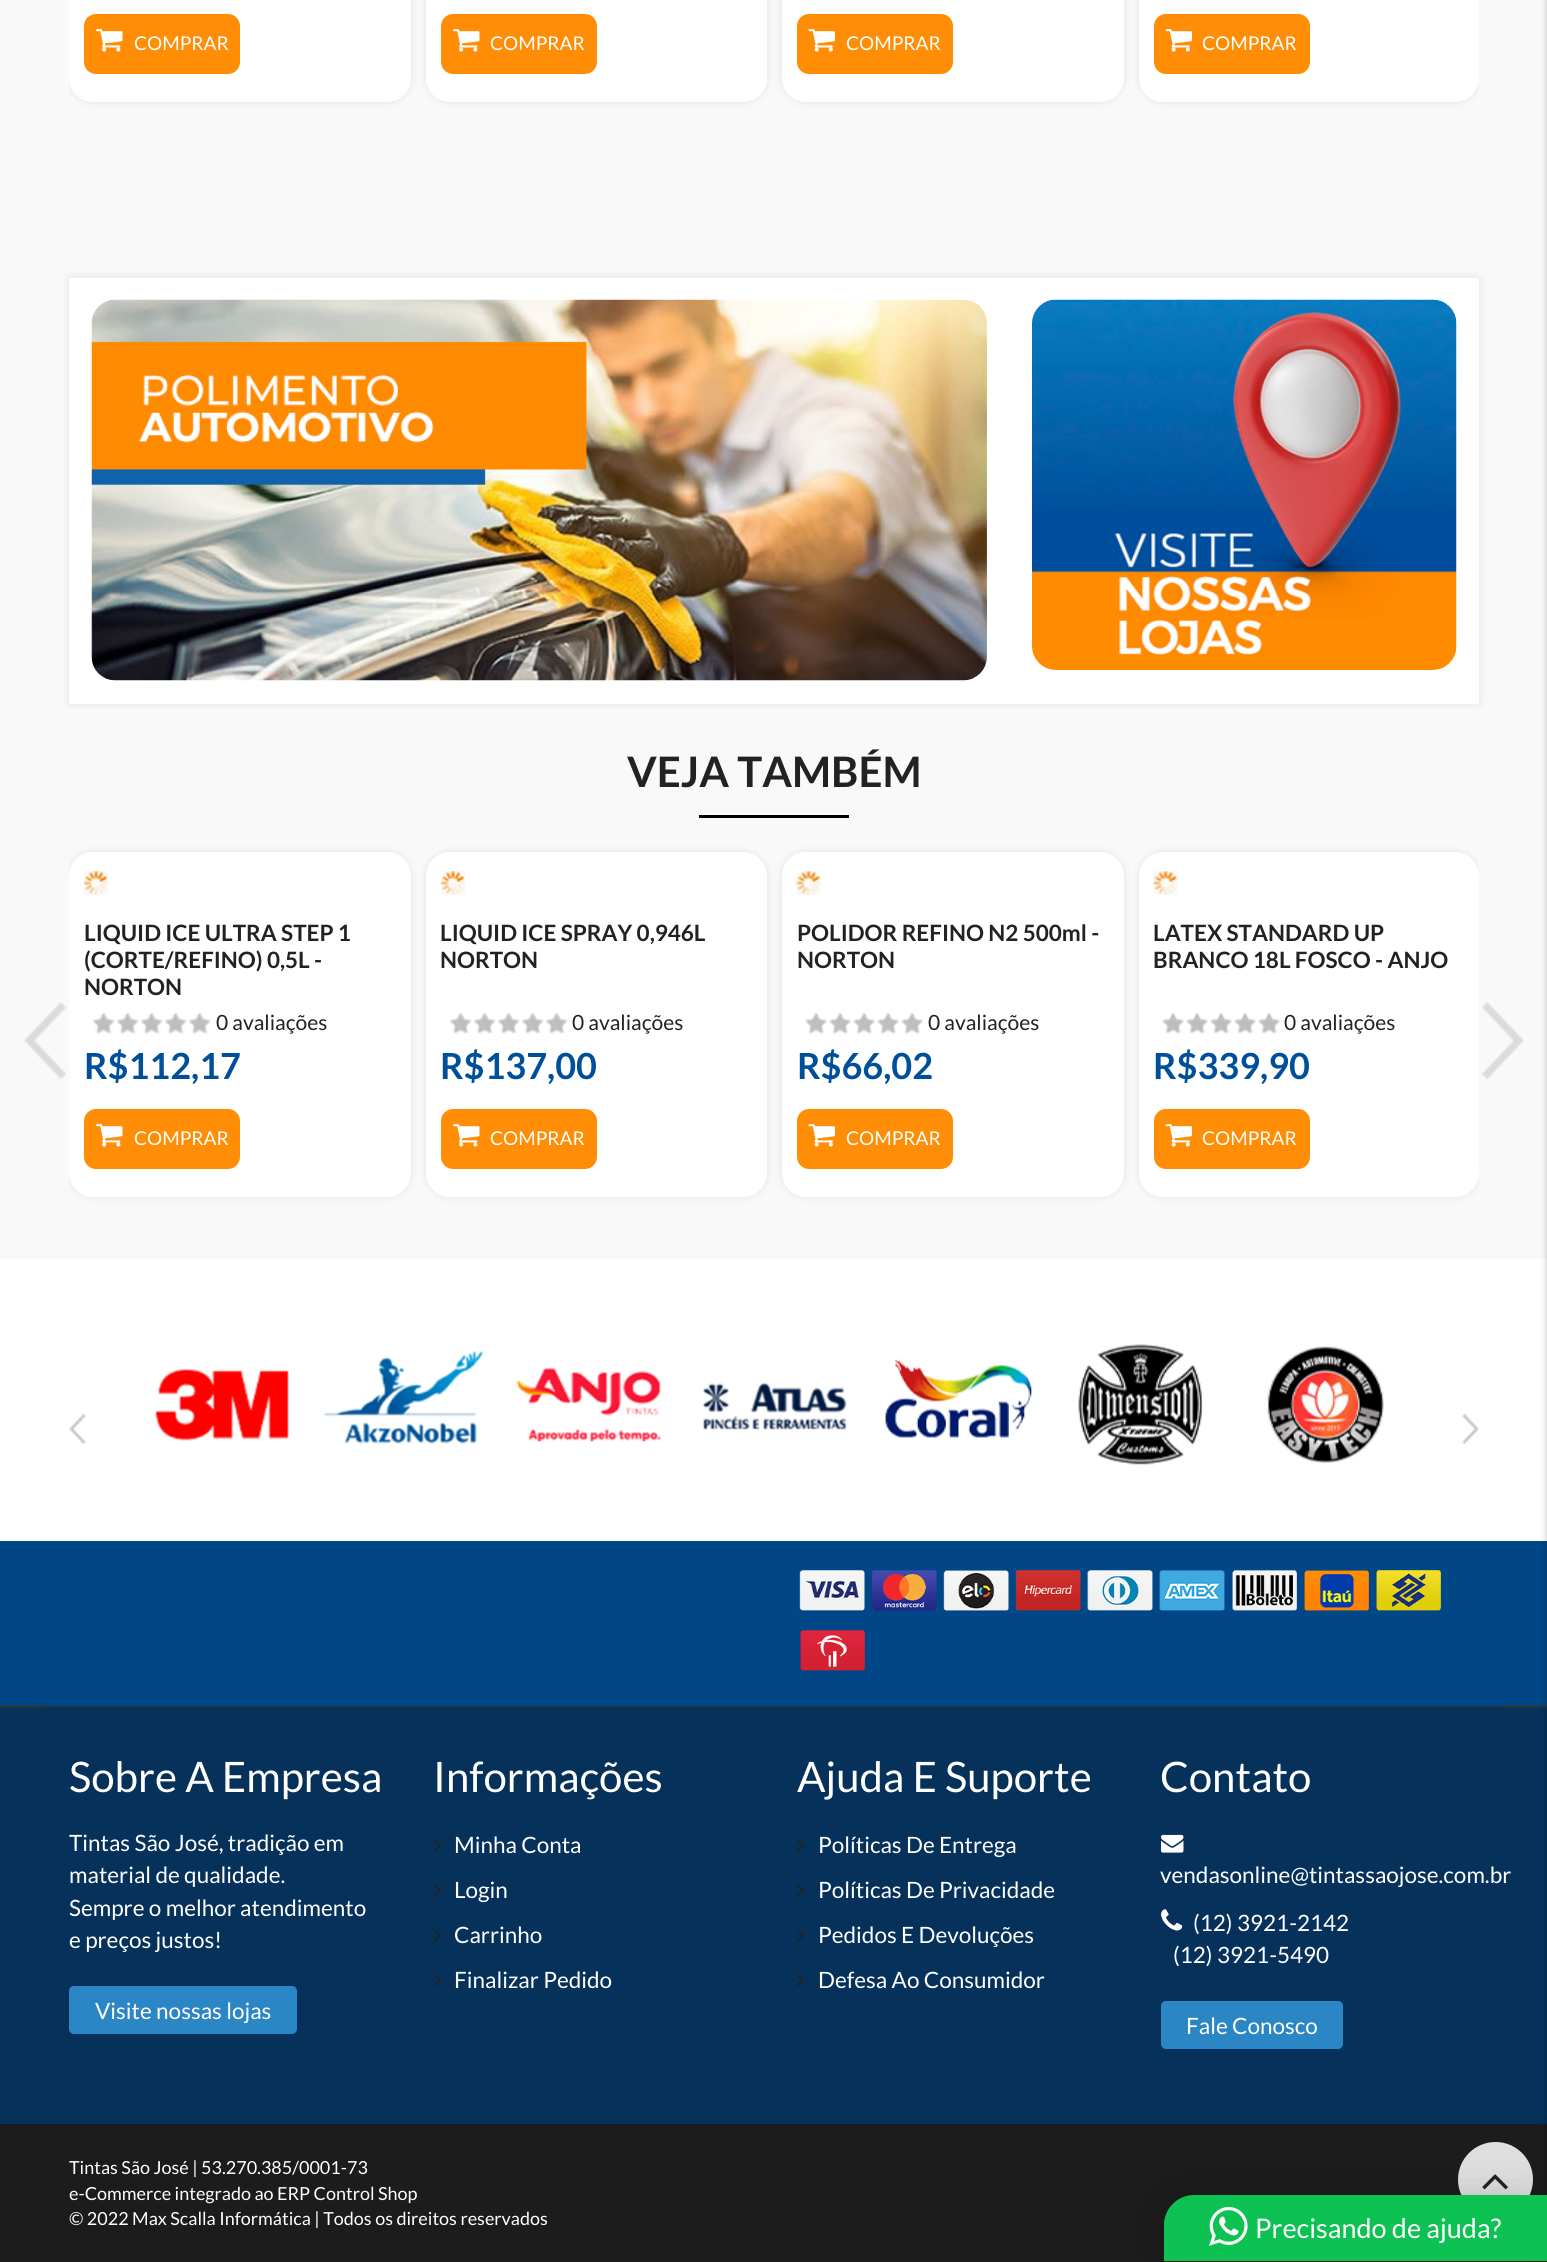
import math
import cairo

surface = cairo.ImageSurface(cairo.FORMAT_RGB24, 1547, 2262)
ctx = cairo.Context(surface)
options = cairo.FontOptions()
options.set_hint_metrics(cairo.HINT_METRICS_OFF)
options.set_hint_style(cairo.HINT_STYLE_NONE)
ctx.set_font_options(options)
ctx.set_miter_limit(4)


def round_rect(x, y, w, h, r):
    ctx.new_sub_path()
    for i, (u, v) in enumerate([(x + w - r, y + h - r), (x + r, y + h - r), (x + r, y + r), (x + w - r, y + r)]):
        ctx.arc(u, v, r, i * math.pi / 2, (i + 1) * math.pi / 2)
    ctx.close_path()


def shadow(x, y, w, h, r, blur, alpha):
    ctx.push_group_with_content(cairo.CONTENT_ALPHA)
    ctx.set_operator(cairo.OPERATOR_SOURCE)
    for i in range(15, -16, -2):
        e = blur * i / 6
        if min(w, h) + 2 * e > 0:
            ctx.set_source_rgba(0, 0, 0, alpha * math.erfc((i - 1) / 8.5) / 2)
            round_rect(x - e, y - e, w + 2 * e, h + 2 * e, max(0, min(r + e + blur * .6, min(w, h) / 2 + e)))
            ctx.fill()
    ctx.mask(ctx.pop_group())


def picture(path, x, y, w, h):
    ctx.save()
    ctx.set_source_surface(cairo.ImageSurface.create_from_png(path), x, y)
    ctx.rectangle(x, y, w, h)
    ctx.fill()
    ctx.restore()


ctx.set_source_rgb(1, 1, 1)
ctx.paint()
ctx.set_source_rgb(0.976, 0.976, 0.976)
ctx.rectangle(0, 0, 1547, 1259)
ctx.fill()
ctx.save()
ctx.rectangle(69, 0, 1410, 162)
ctx.clip()
ctx.set_source_rgb(0, 0, 0)
shadow(69, -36, 342, 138, 24, 4, 0.1)
ctx.restore()
ctx.set_source_rgb(1, 1, 1)
round_rect(69, -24, 342, 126, 24)
ctx.fill()
ctx.set_source_rgb(1, 0.553, 0.024)
round_rect(84, 14, 156, 60, 12)
ctx.fill()
picture("img1.png", 96, 29, 27, 23)
ctx.select_font_face("Lato")
ctx.set_font_size(19)
ctx.set_source_rgb(1, 1, 1)
ctx.move_to(134, 50)
ctx.show_text("COMPRAR")
ctx.set_source_rgb(0, 0, 0)
shadow(426, -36, 341, 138, 24, 4, 0.1)
ctx.set_source_rgb(1, 1, 1)
round_rect(426, -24, 341, 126, 24)
ctx.fill()
ctx.set_source_rgb(1, 0.553, 0.024)
round_rect(441, 14, 156, 60, 12)
ctx.fill()
picture("img1.png", 453, 29, 27, 23)
ctx.set_source_rgb(1, 1, 1)
ctx.move_to(490, 50)
ctx.show_text("COMPRAR")
ctx.set_source_rgb(0, 0, 0)
shadow(782, -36, 342, 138, 24, 4, 0.1)
ctx.set_source_rgb(1, 1, 1)
round_rect(782, -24, 342, 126, 24)
ctx.fill()
ctx.set_source_rgb(1, 0.553, 0.024)
round_rect(797, 14, 156, 60, 12)
ctx.fill()
picture("img2.png", 808, 29, 27, 23)
ctx.set_source_rgb(1, 1, 1)
ctx.move_to(846, 50)
ctx.show_text("COMPRAR")
ctx.save()
ctx.rectangle(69, 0, 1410, 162)
ctx.clip()
ctx.set_source_rgb(0, 0, 0)
shadow(1139, -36, 340, 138, 24, 4, 0.1)
ctx.restore()
round_rect(1139, -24, 340, 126, 24)
ctx.fill()
ctx.set_source_rgb(1, 0.553, 0.024)
round_rect(1154, 14, 156, 60, 12)
ctx.fill()
picture("img2.png", 1165, 29, 27, 23)
ctx.set_source_rgb(1, 1, 1)
ctx.move_to(1202, 50)
ctx.show_text("COMPRAR")
ctx.set_source_rgb(0, 0, 0)
shadow(69, 278, 1410, 426, 0, 4, 0.1)
ctx.set_source_rgb(1, 1, 1)
ctx.rectangle(69, 278, 1410, 426)
ctx.fill()
picture("img3.png", 91, 299, 896, 382)
picture("img4.png", 1032, 299, 425, 371)
ctx.select_font_face("Lato", cairo.FONT_SLANT_NORMAL, cairo.FONT_WEIGHT_BOLD)
ctx.set_font_size(42)
ctx.set_source_rgb(0.133, 0.133, 0.133)
ctx.move_to(627, 787)
ctx.show_text("VEJA TAMBÉM")
ctx.set_source_rgb(0, 0, 0)
ctx.rectangle(699, 815, 150, 3)
ctx.fill()
ctx.save()
ctx.rectangle(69, 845, 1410, 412)
ctx.clip()
ctx.set_source_rgb(0, 0, 0)
shadow(69, 852, 342, 345, 24, 4, 0.1)
ctx.restore()
picture("img5.png", 24, 1002, 42, 77)
ctx.save()
ctx.rectangle(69, 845, 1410, 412)
ctx.clip()
ctx.set_source_rgb(0, 0, 0)
shadow(1139, 852, 340, 345, 24, 4, 0.1)
ctx.restore()
picture("img6.png", 1482, 1002, 42, 78)
ctx.set_source_rgb(1, 1, 1)
round_rect(69, 852, 342, 345, 24)
ctx.fill()
picture("img7.png", 84, 871, 24, 24)
ctx.set_font_size(22.5)
ctx.set_source_rgb(0.133, 0.133, 0.133)
ctx.move_to(84, 941)
ctx.show_text("LIQUID ICE ULTRA STEP 1")
ctx.move_to(84, 968)
ctx.show_text("(CORTE/REFINO) 0,5L -")
ctx.move_to(84, 995)
ctx.show_text("NORTON")
picture("img8.png", 92, 1013, 119, 22)
ctx.select_font_face("Lato")
ctx.set_font_size(21)
ctx.move_to(216, 1030)
ctx.show_text("0 avaliações")
ctx.select_font_face("Lato", cairo.FONT_SLANT_NORMAL, cairo.FONT_WEIGHT_BOLD)
ctx.set_font_size(36)
ctx.set_source_rgb(0, 0.31, 0.604)
ctx.move_to(84, 1079)
ctx.show_text("R$112,17")
ctx.set_source_rgb(1, 0.553, 0.024)
round_rect(84, 1109, 156, 60, 12)
ctx.fill()
picture("img1.png", 96, 1124, 27, 23)
ctx.select_font_face("Lato")
ctx.set_font_size(19)
ctx.set_source_rgb(1, 1, 1)
ctx.move_to(134, 1145)
ctx.show_text("COMPRAR")
ctx.set_source_rgb(0, 0, 0)
shadow(426, 852, 341, 345, 24, 4, 0.1)
ctx.set_source_rgb(1, 1, 1)
round_rect(426, 852, 341, 345, 24)
ctx.fill()
picture("img7.png", 441, 871, 24, 24)
ctx.select_font_face("Lato", cairo.FONT_SLANT_NORMAL, cairo.FONT_WEIGHT_BOLD)
ctx.set_font_size(22.5)
ctx.set_source_rgb(0.133, 0.133, 0.133)
ctx.move_to(440, 941)
ctx.show_text("LIQUID ICE SPRAY 0,946L")
ctx.move_to(440, 968)
ctx.show_text("NORTON")
picture("img9.png", 449, 1013, 119, 22)
ctx.select_font_face("Lato")
ctx.set_font_size(21)
ctx.move_to(572, 1030)
ctx.show_text("0 avaliações")
ctx.select_font_face("Lato", cairo.FONT_SLANT_NORMAL, cairo.FONT_WEIGHT_BOLD)
ctx.set_font_size(36)
ctx.set_source_rgb(0, 0.31, 0.604)
ctx.move_to(440, 1079)
ctx.show_text("R$137,00")
ctx.set_source_rgb(1, 0.553, 0.024)
round_rect(441, 1109, 156, 60, 12)
ctx.fill()
picture("img1.png", 453, 1124, 27, 23)
ctx.select_font_face("Lato")
ctx.set_font_size(19)
ctx.set_source_rgb(1, 1, 1)
ctx.move_to(490, 1145)
ctx.show_text("COMPRAR")
ctx.set_source_rgb(0, 0, 0)
shadow(782, 852, 342, 345, 24, 4, 0.1)
ctx.set_source_rgb(1, 1, 1)
round_rect(782, 852, 342, 345, 24)
ctx.fill()
picture("img10.png", 796, 871, 25, 24)
ctx.select_font_face("Lato", cairo.FONT_SLANT_NORMAL, cairo.FONT_WEIGHT_BOLD)
ctx.set_font_size(22.5)
ctx.set_source_rgb(0.133, 0.133, 0.133)
ctx.move_to(797, 941)
ctx.show_text("POLIDOR REFINO N2 500ml -")
ctx.move_to(797, 968)
ctx.show_text("NORTON")
picture("img11.png", 805, 1013, 118, 22)
ctx.select_font_face("Lato")
ctx.set_font_size(21)
ctx.move_to(928, 1030)
ctx.show_text("0 avaliações")
ctx.select_font_face("Lato", cairo.FONT_SLANT_NORMAL, cairo.FONT_WEIGHT_BOLD)
ctx.set_font_size(36)
ctx.set_source_rgb(0, 0.31, 0.604)
ctx.move_to(797, 1079)
ctx.show_text("R$66,02")
ctx.set_source_rgb(1, 0.553, 0.024)
round_rect(797, 1109, 156, 60, 12)
ctx.fill()
picture("img2.png", 808, 1124, 27, 23)
ctx.select_font_face("Lato")
ctx.set_font_size(19)
ctx.set_source_rgb(1, 1, 1)
ctx.move_to(846, 1145)
ctx.show_text("COMPRAR")
round_rect(1139, 852, 340, 345, 24)
ctx.fill()
picture("img12.png", 1153, 871, 25, 24)
ctx.select_font_face("Lato", cairo.FONT_SLANT_NORMAL, cairo.FONT_WEIGHT_BOLD)
ctx.set_font_size(22.5)
ctx.set_source_rgb(0.133, 0.133, 0.133)
ctx.move_to(1153, 941)
ctx.show_text("LATEX STANDARD UP")
ctx.move_to(1153, 968)
ctx.show_text("BRANCO 18L FOSCO - ANJO")
picture("img13.png", 1162, 1013, 118, 22)
ctx.select_font_face("Lato")
ctx.set_font_size(21)
ctx.move_to(1284, 1030)
ctx.show_text("0 avaliações")
ctx.select_font_face("Lato", cairo.FONT_SLANT_NORMAL, cairo.FONT_WEIGHT_BOLD)
ctx.set_font_size(36)
ctx.set_source_rgb(0, 0.31, 0.604)
ctx.move_to(1153, 1079)
ctx.show_text("R$339,90")
ctx.set_source_rgb(1, 0.553, 0.024)
round_rect(1154, 1109, 156, 60, 12)
ctx.fill()
picture("img2.png", 1165, 1124, 27, 23)
ctx.select_font_face("Lato")
ctx.set_font_size(19)
ctx.set_source_rgb(1, 1, 1)
ctx.move_to(1202, 1145)
ctx.show_text("COMPRAR")
ctx.set_source_rgb(0.004, 0.275, 0.529)
ctx.rectangle(0, 1541, 1547, 165)
ctx.fill()
ctx.set_source_rgb(0.02, 0.192, 0.357)
ctx.rectangle(0, 1708, 1547, 416)
ctx.fill()
ctx.set_source_rgb(0.188, 0.188, 0.188)
ctx.rectangle(0, 1706, 1547, 2)
ctx.fill()
ctx.set_source_rgb(0.11, 0.11, 0.11)
ctx.rectangle(0, 2124, 1547, 138)
ctx.fill()
ctx.set_source_rgb(0, 0, 0)
shadow(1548, 0, 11, 2262, 0, 4, 0.3)
picture("img14.png", 155, 1369, 134, 72)
picture("img15.png", 323, 1351, 160, 93)
picture("img16.png", 516, 1367, 145, 75)
picture("img17.png", 703, 1383, 144, 47)
picture("img18.png", 885, 1359, 147, 79)
picture("img19.png", 1078, 1344, 125, 121)
picture("img20.png", 1267, 1346, 117, 117)
picture("img21.png", 69, 1414, 17, 30)
picture("img22.png", 1462, 1414, 17, 30)
picture("img23.png", 799, 1570, 66, 41)
picture("img24.png", 871, 1570, 66, 41)
picture("img25.png", 943, 1570, 66, 41)
picture("img26.png", 1015, 1570, 66, 41)
picture("img27.png", 1087, 1570, 66, 41)
picture("img28.png", 1159, 1570, 66, 41)
picture("img29.png", 1232, 1570, 65, 41)
picture("img30.png", 1304, 1570, 65, 41)
picture("img31.png", 1376, 1570, 65, 41)
picture("img32.png", 800, 1630, 65, 41)
ctx.set_source_rgb(0.02, 0.192, 0.357)
ctx.rectangle(47, 1707, 1455, 1)
ctx.fill()
ctx.set_font_size(42)
ctx.set_source_rgb(1, 1, 1)
ctx.move_to(69, 1792)
ctx.show_text("Sobre A Empresa")
ctx.set_font_size(22.5)
ctx.move_to(69, 1851)
ctx.show_text("Tintas São José, tradição em")
ctx.move_to(69, 1883)
ctx.show_text("material de qualidade.")
ctx.move_to(69, 1916)
ctx.show_text("Sempre o melhor atendimento")
ctx.move_to(69, 1948)
ctx.show_text("e preços justos!")
ctx.set_source_rgb(0.169, 0.525, 0.773)
round_rect(69, 1986, 228, 48, 5)
ctx.fill()
ctx.set_source_rgb(1, 1, 1)
ctx.move_to(95, 2019)
ctx.show_text("Visite nossas lojas")
ctx.set_font_size(42)
ctx.move_to(433, 1792)
ctx.show_text("Informações")
picture("img33.png", 433, 1839, 8, 13)
ctx.set_font_size(22.5)
ctx.move_to(454, 1853)
ctx.show_text("Minha Conta")
picture("img33.png", 433, 1884, 8, 13)
ctx.move_to(454, 1898)
ctx.show_text("Login")
picture("img33.png", 433, 1929, 8, 13)
ctx.move_to(454, 1943)
ctx.show_text("Carrinho")
picture("img33.png", 433, 1974, 8, 13)
ctx.move_to(454, 1988)
ctx.show_text("Finalizar Pedido")
ctx.set_font_size(42)
ctx.move_to(797, 1792)
ctx.show_text("Ajuda E Suporte")
picture("img33.png", 796, 1839, 8, 13)
ctx.set_font_size(22.5)
ctx.move_to(818, 1853)
ctx.show_text("Políticas De Entrega")
picture("img33.png", 796, 1884, 8, 13)
ctx.move_to(818, 1898)
ctx.show_text("Políticas De Privacidade")
picture("img33.png", 796, 1929, 8, 13)
ctx.move_to(818, 1943)
ctx.show_text("Pedidos E Devoluções")
picture("img33.png", 796, 1974, 8, 13)
ctx.move_to(818, 1988)
ctx.show_text("Defesa Ao Consumidor")
ctx.set_font_size(42)
ctx.move_to(1160, 1792)
ctx.show_text("Contato")
picture("img34.png", 1161, 1834, 23, 19)
ctx.set_font_size(22.5)
ctx.move_to(1160, 1883)
ctx.show_text("vendasonline@tintassaojose.com.br")
picture("img35.png", 1161, 1909, 22, 22)
ctx.move_to(1193, 1931)
ctx.show_text("(12) 3921-2142")
ctx.move_to(1173, 1963)
ctx.show_text("(12) 3921-5490")
ctx.set_source_rgb(0.169, 0.525, 0.773)
round_rect(1161, 2001, 182, 48, 5)
ctx.fill()
ctx.set_source_rgb(1, 1, 1)
ctx.move_to(1186, 2034)
ctx.show_text("Fale Conosco")
ctx.set_font_size(18)
ctx.move_to(69, 2174)
ctx.show_text("Tintas São José | 53.270.385/0001-73")
ctx.move_to(69, 2200)
ctx.show_text("e-Commerce integrado ao ERP Control Shop")
ctx.move_to(69, 2225)
ctx.show_text("© 2022 Max Scalla Informática | Todos os direitos reservados")
ctx.set_source_rgb(0.875, 0.875, 0.875)
ctx.new_path()
ctx.arc(1495.5, 2179.5, 37.5, 0, 2 * math.pi)
ctx.fill()
picture("img36.png", 1482, 2174, 26, 16)
ctx.set_source_rgb(0, 0, 0)
shadow(1164, 2198, 383, 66, 30, 24, 0.16)
shadow(1164, 2196, 383, 66, 30, 4.5, 0.06)
ctx.set_source_rgb(0.051, 0.757, 0.322)
ctx.new_path()
ctx.move_to(1194, 2195)
ctx.line_to(1547, 2195)
ctx.line_to(1547, 2261)
ctx.line_to(1164, 2261)
ctx.line_to(1164, 2225)
ctx.curve_to(1164, 2208.5, 1177.5, 2195, 1194, 2195)
ctx.close_path()
ctx.fill()
picture("img37.png", 1209, 2207, 39, 39)
ctx.set_font_size(27)
ctx.set_source_rgb(1, 1, 1)
ctx.move_to(1255, 2238)
ctx.show_text("Precisando de ajuda?")
surface.write_to_png("page.png")
